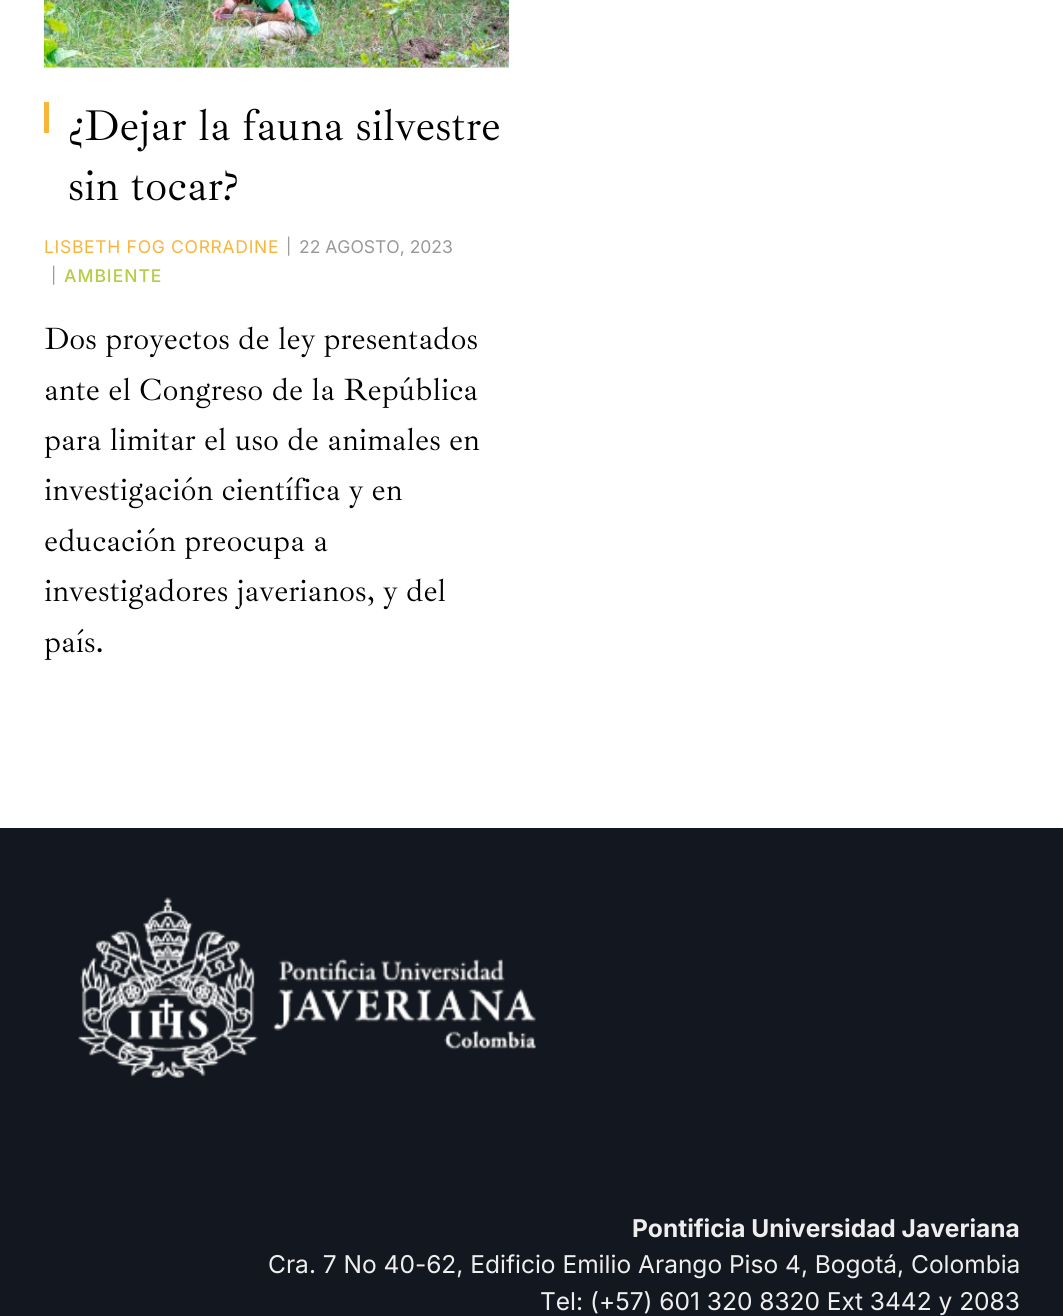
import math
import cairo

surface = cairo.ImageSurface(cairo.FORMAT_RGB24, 1063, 1316)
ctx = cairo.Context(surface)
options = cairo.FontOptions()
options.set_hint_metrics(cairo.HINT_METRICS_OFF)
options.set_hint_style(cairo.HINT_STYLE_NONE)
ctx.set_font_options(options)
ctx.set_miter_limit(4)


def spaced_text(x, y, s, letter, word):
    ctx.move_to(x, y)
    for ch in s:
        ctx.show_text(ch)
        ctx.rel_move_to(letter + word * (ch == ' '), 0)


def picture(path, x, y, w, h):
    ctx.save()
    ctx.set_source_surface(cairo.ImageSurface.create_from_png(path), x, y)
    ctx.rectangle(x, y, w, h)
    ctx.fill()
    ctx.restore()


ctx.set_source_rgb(1, 1, 1)
ctx.paint()
picture("img1.png", 43, 0, 467, 68)
ctx.set_source_rgb(0.973, 0.71, 0.224)
ctx.rectangle(44, 102, 5, 31)
ctx.fill()
ctx.select_font_face("Ibarra Real Nova")
ctx.set_font_size(44)
ctx.set_source_rgb(0, 0, 0)
ctx.move_to(68, 140)
ctx.show_text("¿Dejar la fauna silvestre")
ctx.move_to(68, 200)
ctx.show_text("sin tocar?")
ctx.select_font_face("Inter")
ctx.set_font_size(17.5)
ctx.set_source_rgb(0.973, 0.71, 0.224)
spaced_text(44, 253, "LISBETH FOG CORRADINE", 0.7, 0)
ctx.set_font_size(16)
ctx.set_source_rgb(0.6, 0.6, 0.6)
ctx.move_to(286, 252)
ctx.show_text("|")
ctx.set_font_size(17.5)
ctx.move_to(299, 253)
ctx.show_text("22 AGOSTO, 2023")
ctx.set_font_size(16)
ctx.move_to(51, 281)
ctx.show_text("|")
ctx.select_font_face("Inter Medium")
ctx.set_font_size(17.5)
ctx.set_source_rgb(0.706, 0.804, 0.275)
spaced_text(64, 282, "AMBIENTE", 1, 0)
ctx.select_font_face("Ibarra Real Nova")
ctx.set_font_size(31.5)
ctx.set_source_rgb(0, 0, 0)
ctx.move_to(44, 349)
ctx.show_text("Dos proyectos de ley presentados")
ctx.move_to(44, 400)
ctx.show_text("ante el Congreso de la República")
ctx.move_to(44, 450)
ctx.show_text("para limitar el uso de animales en")
ctx.move_to(44, 500)
ctx.show_text("investigación científica y en")
ctx.move_to(44, 551)
ctx.show_text("educación preocupa a")
ctx.move_to(44, 601)
ctx.show_text("investigadores javerianos, y del")
ctx.move_to(44, 652)
ctx.show_text("país.")
ctx.set_source_rgb(0.078, 0.09, 0.122)
ctx.rectangle(0, 828, 1063, 488)
ctx.fill()
picture("img2.png", 78, 897, 458, 181)
ctx.select_font_face("Inter", cairo.FONT_SLANT_NORMAL, cairo.FONT_WEIGHT_BOLD)
ctx.set_font_size(24.5)
ctx.set_source_rgb(0.933, 0.933, 0.933)
ctx.move_to(632, 1237)
ctx.show_text("Pontificia Universidad Javeriana")
ctx.select_font_face("Inter")
ctx.move_to(268, 1273)
ctx.show_text("Cra. 7 No 40-62, Edificio Emilio Arango Piso 4, Bogotá, Colombia")
ctx.move_to(540, 1310)
ctx.show_text("Tel: (+57) 601 320 8320 Ext 3442 y 2083")
surface.write_to_png("page.png")
